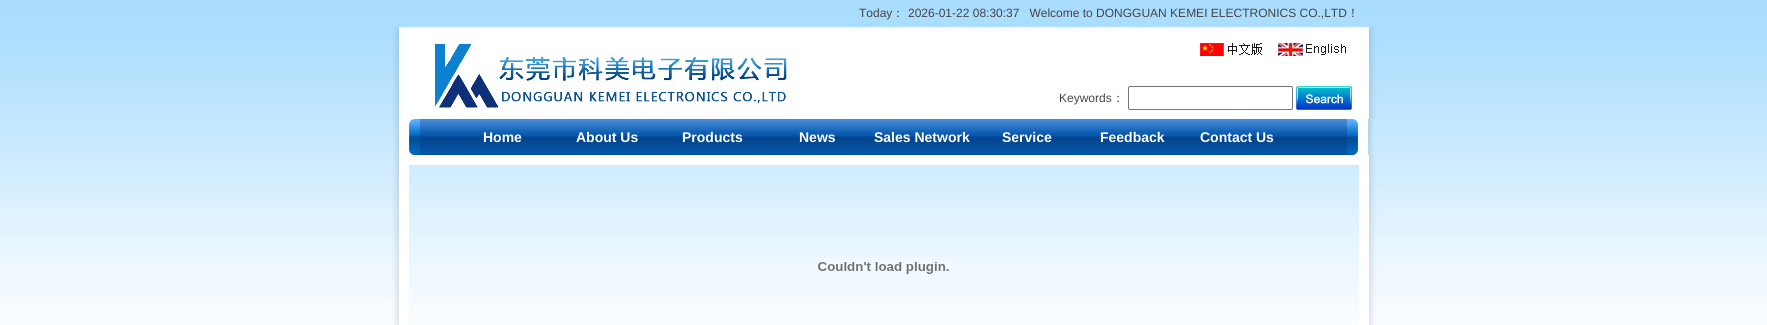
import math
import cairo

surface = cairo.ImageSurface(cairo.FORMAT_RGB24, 1767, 325)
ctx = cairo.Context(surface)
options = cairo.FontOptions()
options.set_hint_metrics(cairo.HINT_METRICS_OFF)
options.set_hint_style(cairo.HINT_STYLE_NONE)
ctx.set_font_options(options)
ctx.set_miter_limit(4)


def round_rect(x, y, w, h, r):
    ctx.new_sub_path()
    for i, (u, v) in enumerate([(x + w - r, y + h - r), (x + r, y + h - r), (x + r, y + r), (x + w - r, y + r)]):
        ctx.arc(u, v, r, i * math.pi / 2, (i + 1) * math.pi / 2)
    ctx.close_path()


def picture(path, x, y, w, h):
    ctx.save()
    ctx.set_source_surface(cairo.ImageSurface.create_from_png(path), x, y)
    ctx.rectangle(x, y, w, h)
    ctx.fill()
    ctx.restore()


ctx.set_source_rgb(1, 1, 1)
ctx.paint()
picture("img1.png", 0, 0, 1767, 27)
ctx.select_font_face("Liberation Sans")
ctx.set_font_size(12)
ctx.set_source_rgb(0.271, 0.271, 0.271)
ctx.move_to(859, 17)
ctx.show_text("Today")
ctx.select_font_face("WenQuanYi Zen Hei Medium")
ctx.move_to(892, 17)
ctx.show_text("：")
ctx.select_font_face("Liberation Sans")
ctx.move_to(908, 17)
ctx.show_text("2026-01-22 08:30:37   Welcome to DONGGUAN KEMEI ELECTRONICS CO.,LTD")
ctx.select_font_face("WenQuanYi Zen Hei Medium")
ctx.move_to(1347, 17)
ctx.show_text("！")
picture("img2.png", 0, 27, 1767, 298)
picture("img3.png", 392, 27, 453, 92)
ctx.set_source_rgb(1, 1, 1)
ctx.rectangle(845, 59, 524, 60)
ctx.fill()
picture("img4.png", 845, 27, 524, 32)
ctx.select_font_face("Liberation Sans")
ctx.set_source_rgb(0.271, 0.271, 0.271)
ctx.move_to(1059, 102)
ctx.show_text("Keywords")
ctx.select_font_face("WenQuanYi Zen Hei Medium")
ctx.move_to(1112, 102)
ctx.show_text("：")
round_rect(1128.5, 86.5, 164, 23, 1.5)
ctx.set_source_rgb(0.463, 0.463, 0.463)
ctx.set_line_width(1)
ctx.stroke()
picture("img5.png", 1296, 86, 56, 24)
picture("img6.png", 1369, 27, 8, 92)
picture("img7.png", 393, 119, 27, 36)
picture("img8.png", 420, 119, 927, 36)
ctx.select_font_face("Liberation Sans", cairo.FONT_SLANT_NORMAL, cairo.FONT_WEIGHT_BOLD)
ctx.set_font_size(14)
ctx.set_source_rgb(1, 1, 1)
ctx.move_to(483, 142)
ctx.show_text("Home")
ctx.move_to(576, 142)
ctx.show_text("About Us")
ctx.move_to(682, 142)
ctx.show_text("Products")
ctx.move_to(799, 142)
ctx.show_text("News")
ctx.move_to(874, 142)
ctx.show_text("Sales Network")
ctx.move_to(1002, 142)
ctx.show_text("Service")
ctx.move_to(1100, 142)
ctx.show_text("Feedback")
ctx.move_to(1200, 142)
ctx.show_text("Contact Us")
picture("img9.png", 1347, 119, 27, 36)
picture("img10.png", 393, 155, 982, 10)
picture("img11.png", 392, 165, 17, 160)
picture("img12.png", 814, 258, 139, 16)
picture("img13.png", 1359, 165, 18, 160)
surface.write_to_png("page.png")
